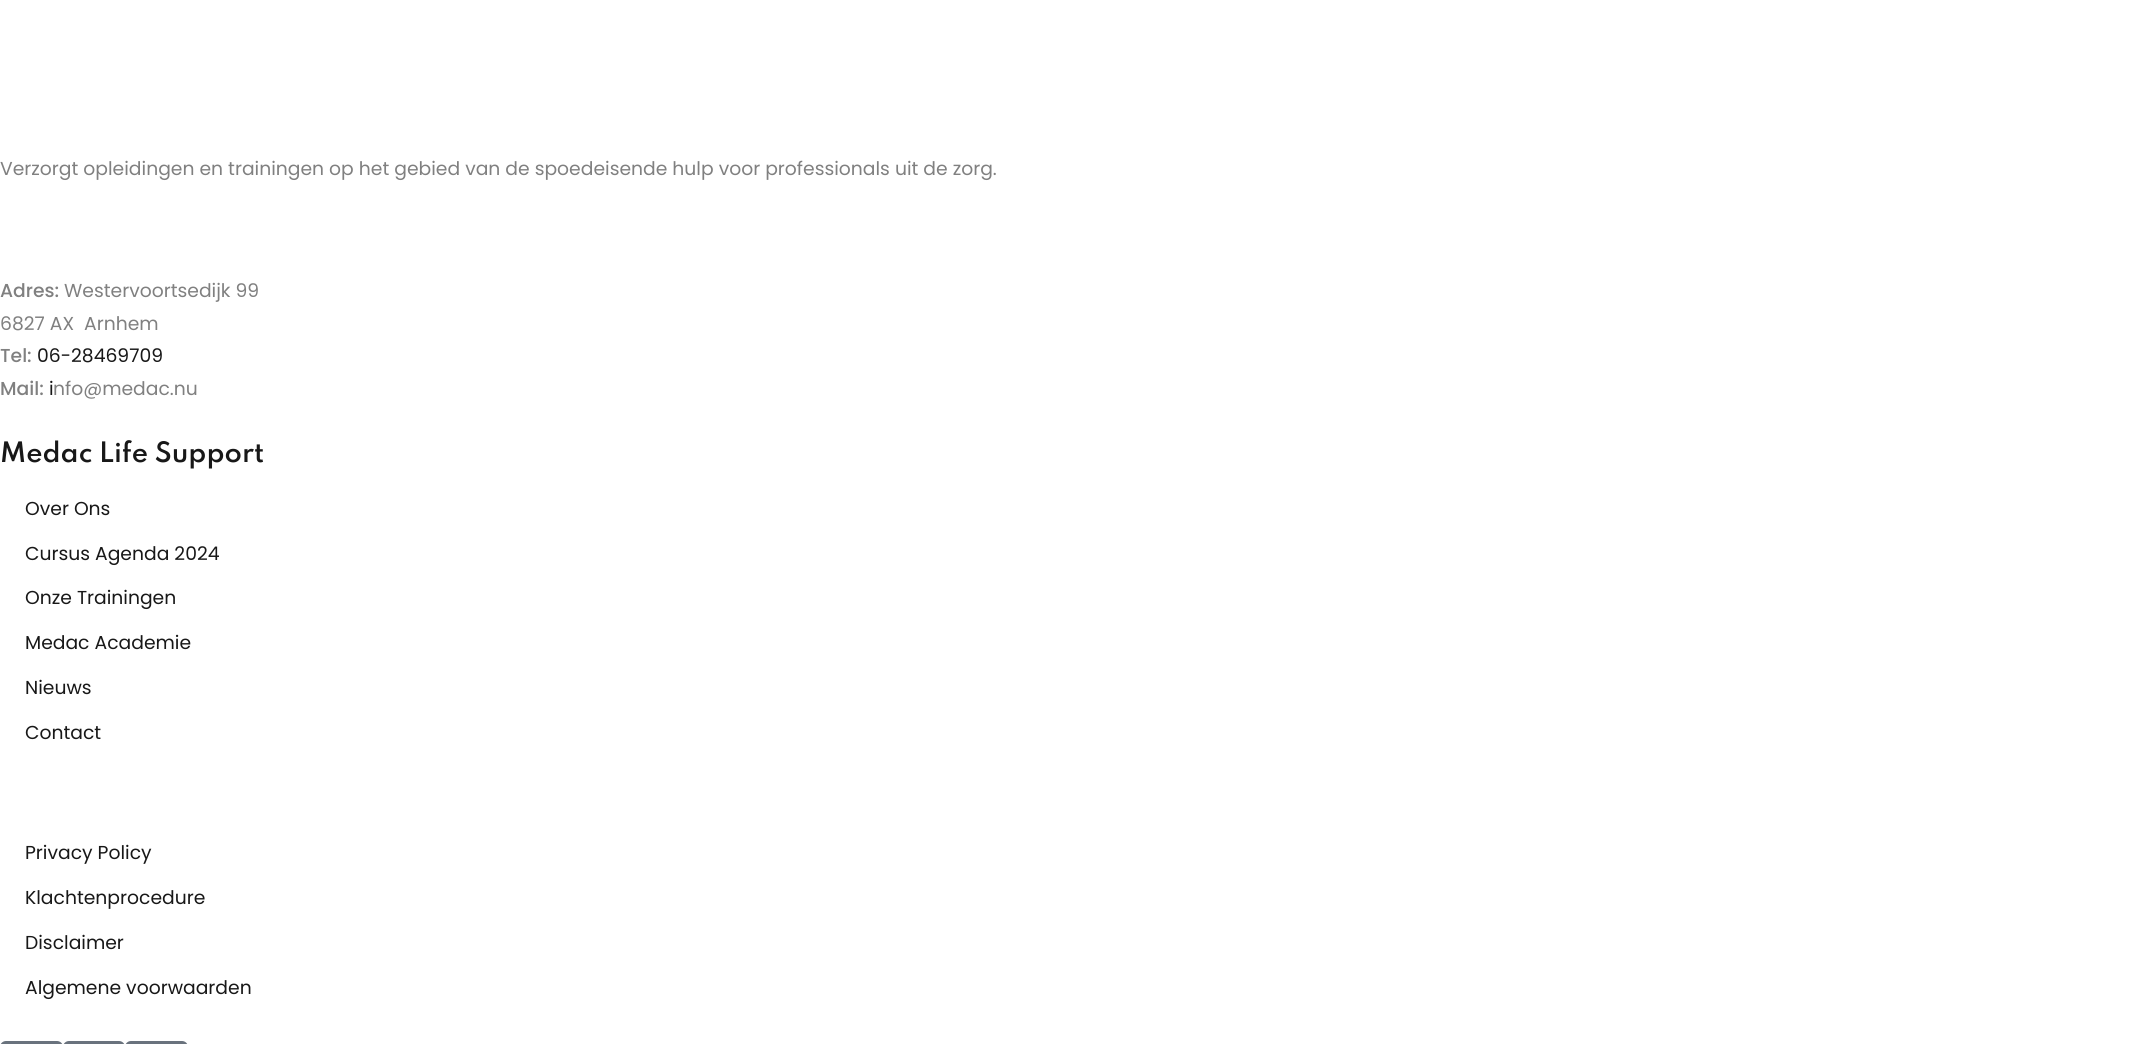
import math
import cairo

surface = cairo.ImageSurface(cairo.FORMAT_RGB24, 2140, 1044)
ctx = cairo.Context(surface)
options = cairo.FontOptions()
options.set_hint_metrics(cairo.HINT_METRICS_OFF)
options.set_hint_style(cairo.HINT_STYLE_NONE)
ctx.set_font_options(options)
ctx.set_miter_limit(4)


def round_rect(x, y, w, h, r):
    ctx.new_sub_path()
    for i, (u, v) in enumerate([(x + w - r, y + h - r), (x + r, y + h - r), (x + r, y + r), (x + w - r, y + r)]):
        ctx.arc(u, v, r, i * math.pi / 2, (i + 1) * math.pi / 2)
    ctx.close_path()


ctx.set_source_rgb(1, 1, 1)
ctx.paint()
ctx.select_font_face("Poppins")
ctx.set_font_size(18.75)
ctx.set_source_rgb(0.502, 0.502, 0.502)
ctx.move_to(0, 175)
ctx.show_text("Verzorgt opleidingen en trainingen op het gebied van de spoedeisende hulp voor professionals uit de zorg.")
ctx.select_font_face("Poppins Medium")
ctx.move_to(0, 297)
ctx.show_text("Adres:")
ctx.select_font_face("Poppins")
ctx.move_to(64, 297)
ctx.show_text("Westervoortsedijk 99")
ctx.move_to(0, 330)
ctx.show_text("6827 AX  Arnhem")
ctx.select_font_face("Poppins Medium")
ctx.move_to(0, 362)
ctx.show_text("Tel:")
ctx.select_font_face("Poppins")
ctx.set_source_rgb(0.094, 0.094, 0.094)
ctx.move_to(37, 362)
ctx.show_text("06-28469709")
ctx.select_font_face("Poppins Medium")
ctx.set_source_rgb(0.502, 0.502, 0.502)
ctx.move_to(0, 395)
ctx.show_text("Mail:")
ctx.select_font_face("Poppins")
ctx.set_source_rgb(0.094, 0.094, 0.094)
ctx.move_to(49, 395)
ctx.show_text("i")
ctx.set_source_rgb(0.502, 0.502, 0.502)
ctx.move_to(53, 395)
ctx.show_text("nfo@medac.nu")
ctx.select_font_face("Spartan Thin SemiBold")
ctx.set_font_size(25)
ctx.set_source_rgb(0.094, 0.094, 0.094)
ctx.move_to(0, 462)
ctx.show_text("Medac Life Support")
ctx.select_font_face("Poppins")
ctx.set_font_size(18.75)
ctx.move_to(25, 515)
ctx.show_text("Over Ons")
ctx.move_to(25, 560)
ctx.show_text("Cursus Agenda 2024")
ctx.move_to(25, 604)
ctx.show_text("Onze Trainingen")
ctx.move_to(25, 649)
ctx.show_text("Medac Academie")
ctx.move_to(25, 694)
ctx.show_text("Nieuws")
ctx.move_to(25, 739)
ctx.show_text("Contact")
ctx.move_to(25, 859)
ctx.show_text("Privacy Policy")
ctx.move_to(25, 904)
ctx.show_text("Klachtenprocedure")
ctx.move_to(25, 949)
ctx.show_text("Disclaimer")
ctx.move_to(25, 994)
ctx.show_text("Algemene voorwaarden")
ctx.set_source_rgb(0.412, 0.447, 0.49)
round_rect(0, 1041, 63, 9, 6)
ctx.fill()
round_rect(63, 1041, 62, 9, 6)
ctx.fill()
round_rect(125, 1041, 63, 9, 6)
ctx.fill()
surface.write_to_png("page.png")
